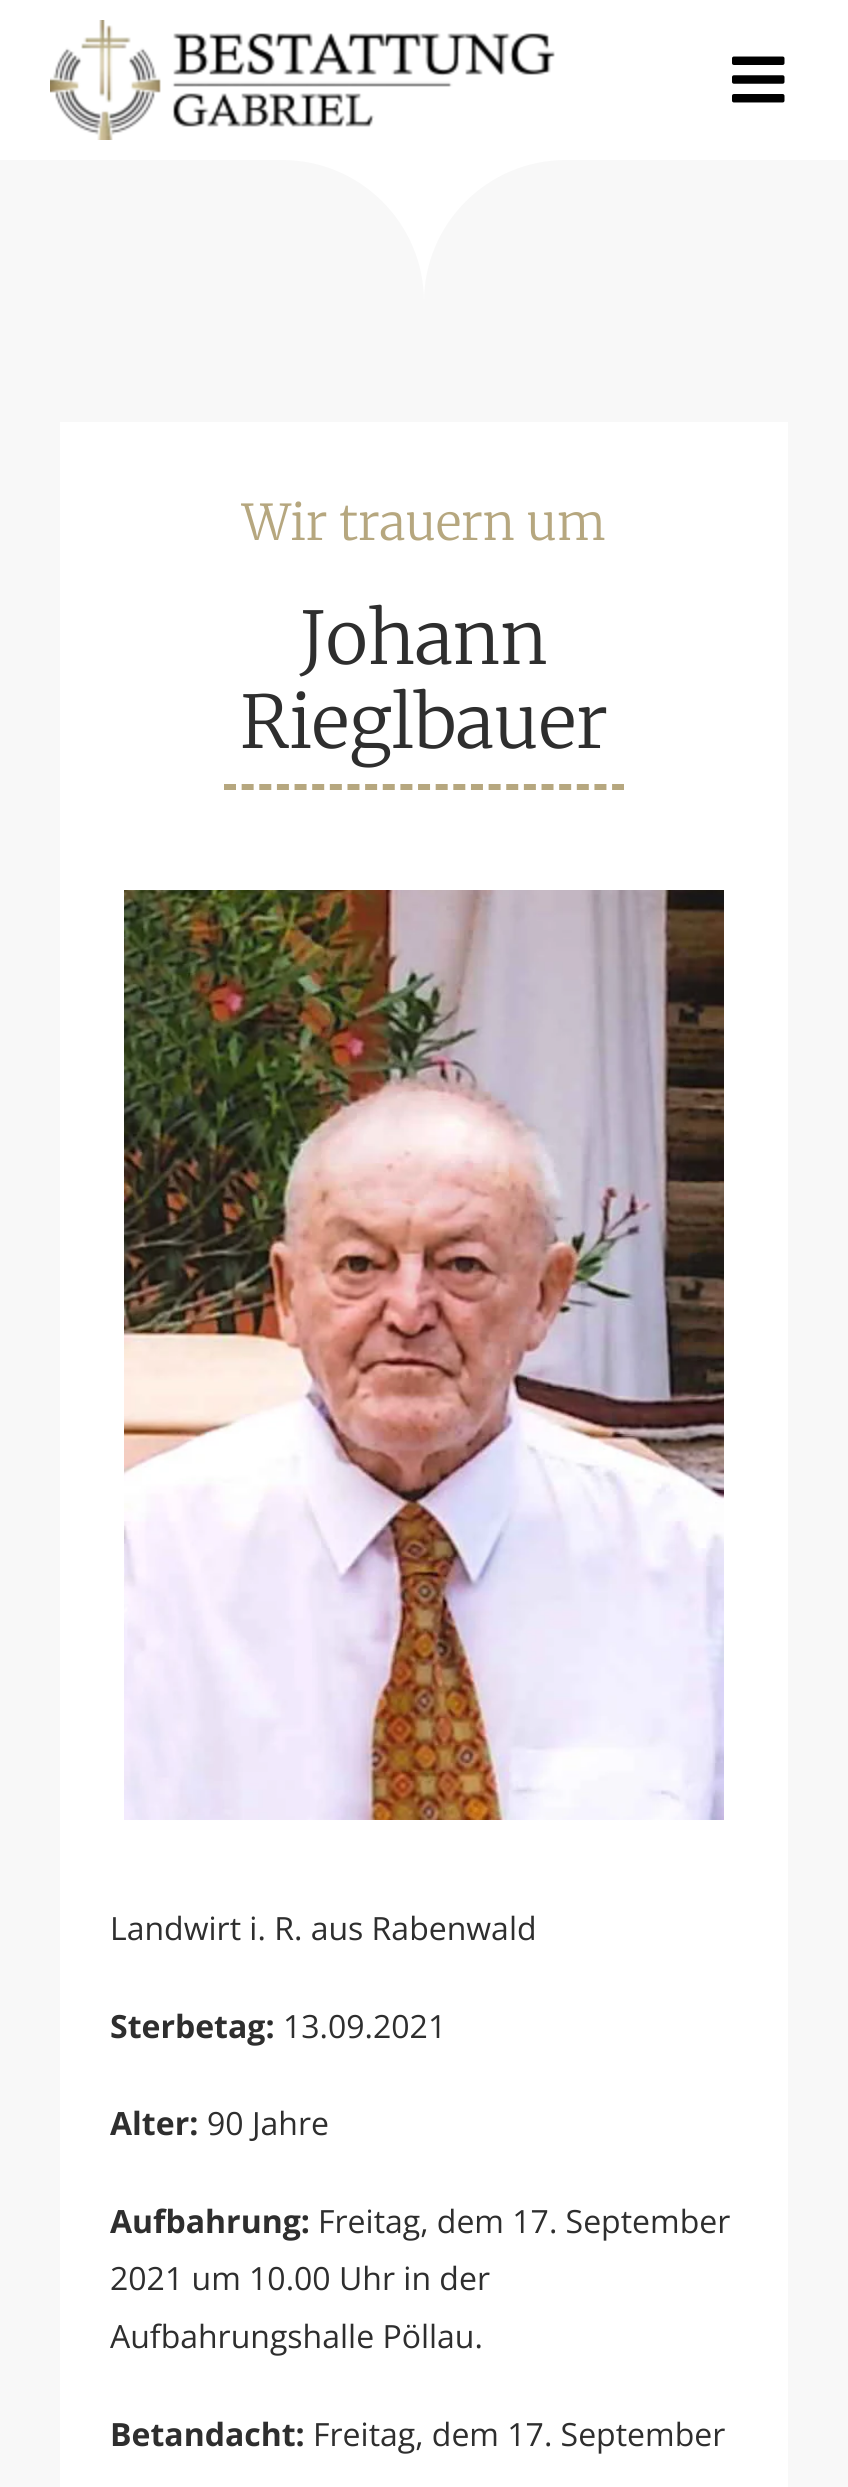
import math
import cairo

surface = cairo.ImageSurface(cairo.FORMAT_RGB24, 848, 2487)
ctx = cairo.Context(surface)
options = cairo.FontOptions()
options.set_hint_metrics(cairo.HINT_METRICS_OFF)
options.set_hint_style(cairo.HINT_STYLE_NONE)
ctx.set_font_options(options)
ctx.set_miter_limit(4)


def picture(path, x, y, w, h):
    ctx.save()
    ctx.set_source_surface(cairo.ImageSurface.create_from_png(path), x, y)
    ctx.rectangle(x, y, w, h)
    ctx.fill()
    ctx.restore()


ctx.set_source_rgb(0.969, 0.969, 0.969)
ctx.paint()
ctx.set_source_rgb(1, 1, 1)
ctx.rectangle(0, 0, 848, 302)
ctx.fill()
picture("img1.png", 50, 20, 505, 120)
picture("img2.png", 732, 56, 53, 47)
ctx.set_source_rgb(0.969, 0.969, 0.969)
ctx.new_path()
ctx.move_to(0, 160)
ctx.line_to(282, 160)
ctx.curve_to(360.5, 160, 424, 223.5, 424, 302)
ctx.line_to(0, 302)
ctx.close_path()
ctx.fill()
ctx.new_path()
ctx.move_to(566, 160)
ctx.line_to(848, 160)
ctx.line_to(848, 302)
ctx.line_to(424, 302)
ctx.curve_to(424, 223.5, 487.5, 160, 566, 160)
ctx.close_path()
ctx.fill()
ctx.set_source_rgb(1, 1, 1)
ctx.rectangle(60, 422, 728, 2065)
ctx.fill()
ctx.select_font_face("Merriweather Light")
ctx.set_font_size(49.25)
ctx.set_source_rgb(0.714, 0.655, 0.498)
ctx.move_to(242, 540)
ctx.show_text("Wir trauern um")
ctx.set_font_size(72.5)
ctx.set_source_rgb(0.18, 0.18, 0.18)
ctx.move_to(300, 664)
ctx.show_text("Johann")
ctx.move_to(240, 748)
ctx.show_text("Rieglbauer")
ctx.new_path()
ctx.move_to(224, 787)
ctx.line_to(624, 787)
ctx.set_source_rgb(0.714, 0.655, 0.498)
ctx.set_line_width(6)
ctx.set_dash([12, 5.64])
ctx.stroke()
picture("img3.png", 124, 890, 600, 930)
ctx.select_font_face("Open Sans")
ctx.set_font_size(32)
ctx.set_source_rgb(0.18, 0.18, 0.18)
ctx.move_to(110, 1940)
ctx.show_text("Landwirt i. R. aus Rabenwald")
ctx.select_font_face("Open Sans", cairo.FONT_SLANT_NORMAL, cairo.FONT_WEIGHT_BOLD)
ctx.move_to(110, 2038)
ctx.show_text("Sterbetag:")
ctx.select_font_face("Open Sans")
ctx.move_to(283, 2038)
ctx.show_text("13.09.2021")
ctx.select_font_face("Open Sans", cairo.FONT_SLANT_NORMAL, cairo.FONT_WEIGHT_BOLD)
ctx.move_to(110, 2135)
ctx.show_text("Alter:")
ctx.select_font_face("Open Sans")
ctx.move_to(207, 2135)
ctx.show_text("90 Jahre")
ctx.select_font_face("Open Sans", cairo.FONT_SLANT_NORMAL, cairo.FONT_WEIGHT_BOLD)
ctx.move_to(110, 2233)
ctx.show_text("Aufbahrung:")
ctx.select_font_face("Open Sans")
ctx.move_to(318, 2233)
ctx.show_text("Freitag, dem 17. September")
ctx.move_to(110, 2290)
ctx.show_text("2021 um 10.00 Uhr in der")
ctx.move_to(110, 2348)
ctx.show_text("Aufbahrungshalle Pöllau.")
ctx.select_font_face("Open Sans", cairo.FONT_SLANT_NORMAL, cairo.FONT_WEIGHT_BOLD)
ctx.move_to(110, 2446)
ctx.show_text("Betandacht:")
ctx.select_font_face("Open Sans")
ctx.move_to(313, 2446)
ctx.show_text("Freitag, dem 17. September")
surface.write_to_png("page.png")
